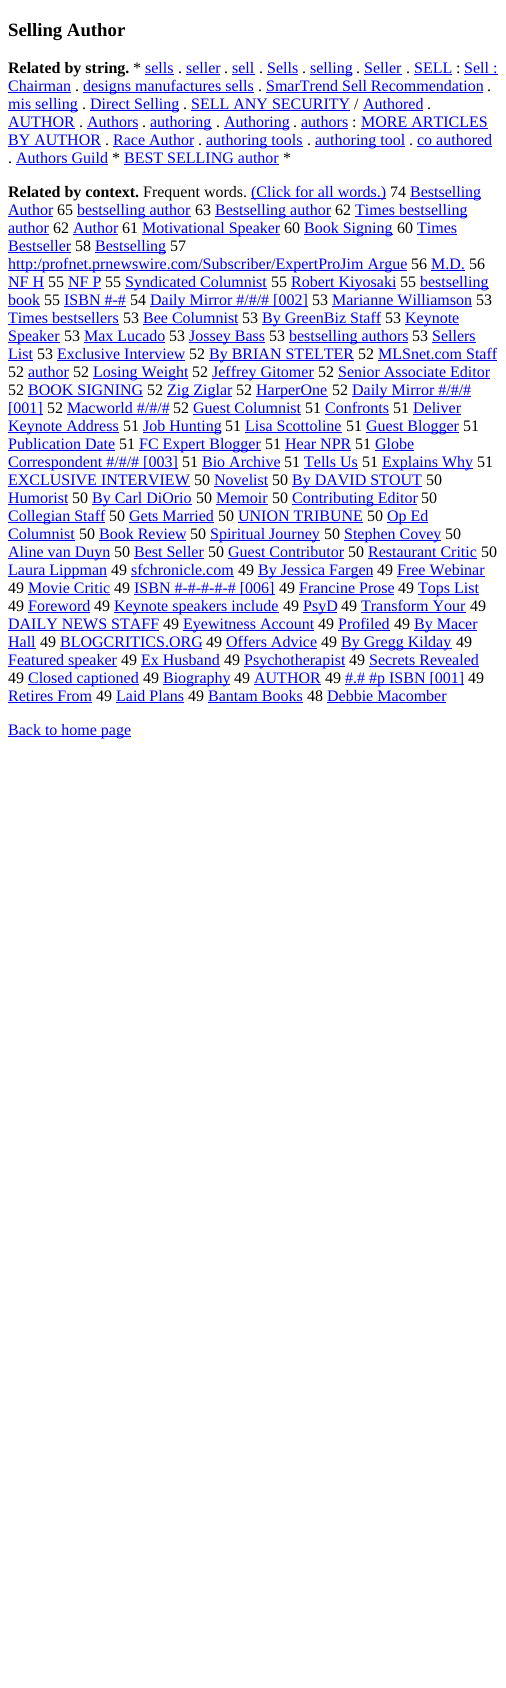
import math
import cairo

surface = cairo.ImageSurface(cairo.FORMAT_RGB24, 506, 1688)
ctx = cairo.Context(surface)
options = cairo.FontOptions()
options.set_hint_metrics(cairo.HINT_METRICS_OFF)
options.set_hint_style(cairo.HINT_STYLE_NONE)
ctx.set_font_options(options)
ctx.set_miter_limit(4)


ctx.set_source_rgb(1, 1, 1)
ctx.paint()
ctx.select_font_face("Liberation Serif", cairo.FONT_SLANT_NORMAL, cairo.FONT_WEIGHT_BOLD)
ctx.set_font_size(18.75)
ctx.set_source_rgb(0, 0, 0)
ctx.move_to(8, 36)
ctx.show_text("Selling Author")
ctx.set_font_size(16)
ctx.move_to(8, 73)
ctx.show_text("Related by string.")
ctx.select_font_face("Liberation Serif")
ctx.move_to(133, 73)
ctx.show_text("*")
ctx.set_source_rgb(0, 0, 0.933)
ctx.move_to(145, 73)
ctx.show_text("sells")
ctx.rectangle(145, 74, 29, 1)
ctx.fill()
ctx.set_source_rgb(0, 0, 0)
ctx.move_to(178, 73)
ctx.show_text(".")
ctx.set_source_rgb(0, 0, 0.933)
ctx.move_to(186, 73)
ctx.show_text("seller")
ctx.rectangle(186, 74, 34, 1)
ctx.fill()
ctx.set_source_rgb(0, 0, 0)
ctx.move_to(224, 73)
ctx.show_text(".")
ctx.set_source_rgb(0, 0, 0.933)
ctx.move_to(232, 73)
ctx.show_text("sell")
ctx.rectangle(232, 74, 23, 1)
ctx.fill()
ctx.set_source_rgb(0, 0, 0)
ctx.move_to(259, 73)
ctx.show_text(".")
ctx.set_source_rgb(0, 0, 0.933)
ctx.move_to(267, 73)
ctx.show_text("Sells")
ctx.rectangle(267, 74, 31, 1)
ctx.fill()
ctx.set_source_rgb(0, 0, 0)
ctx.move_to(302, 73)
ctx.show_text(".")
ctx.set_source_rgb(0, 0, 0.933)
ctx.rectangle(310, 74, 42, 1)
ctx.fill()
ctx.move_to(310, 73)
ctx.show_text("selling")
ctx.set_source_rgb(0, 0, 0)
ctx.move_to(356, 73)
ctx.show_text(".")
ctx.set_source_rgb(0, 0, 0.933)
ctx.move_to(364, 73)
ctx.show_text("Seller")
ctx.rectangle(364, 74, 38, 1)
ctx.fill()
ctx.set_source_rgb(0, 0, 0)
ctx.move_to(406, 73)
ctx.show_text(".")
ctx.set_source_rgb(0, 0, 0.933)
ctx.move_to(414, 73)
ctx.show_text("SELL")
ctx.rectangle(414, 74, 38, 1)
ctx.fill()
ctx.set_source_rgb(0, 0, 0)
ctx.move_to(456, 73)
ctx.show_text(":")
ctx.set_source_rgb(0, 0, 0.933)
ctx.move_to(464, 73)
ctx.show_text("Sell :")
ctx.rectangle(464, 74, 34, 1)
ctx.fill()
ctx.move_to(8, 91)
ctx.show_text("Chairman")
ctx.rectangle(8, 92, 63, 1)
ctx.fill()
ctx.set_source_rgb(0, 0, 0)
ctx.move_to(75, 91)
ctx.show_text(".")
ctx.set_source_rgb(0, 0, 0.933)
ctx.rectangle(83, 92, 171, 1)
ctx.fill()
ctx.move_to(83, 91)
ctx.show_text("designs manufactures sells")
ctx.set_source_rgb(0, 0, 0)
ctx.move_to(258, 91)
ctx.show_text(".")
ctx.set_source_rgb(0, 0, 0.933)
ctx.move_to(266, 91)
ctx.show_text("SmarTrend Sell Recommendation")
ctx.rectangle(266, 92, 217, 1)
ctx.fill()
ctx.set_source_rgb(0, 0, 0)
ctx.move_to(487, 91)
ctx.show_text(".")
ctx.set_source_rgb(0, 0, 0.933)
ctx.rectangle(8, 110, 70, 1)
ctx.fill()
ctx.move_to(8, 109)
ctx.show_text("mis selling")
ctx.set_source_rgb(0, 0, 0)
ctx.move_to(82, 109)
ctx.show_text(".")
ctx.set_source_rgb(0, 0, 0.933)
ctx.rectangle(90, 110, 89, 1)
ctx.fill()
ctx.move_to(90, 109)
ctx.show_text("Direct Selling")
ctx.set_source_rgb(0, 0, 0)
ctx.move_to(183, 109)
ctx.show_text(".")
ctx.set_source_rgb(0, 0, 0.933)
ctx.move_to(191, 109)
ctx.show_text("SELL ANY SECURITY")
ctx.rectangle(191, 110, 159, 1)
ctx.fill()
ctx.set_source_rgb(0, 0, 0)
ctx.move_to(354, 109)
ctx.show_text("/")
ctx.set_source_rgb(0, 0, 0.933)
ctx.move_to(363, 109)
ctx.show_text("Authored")
ctx.rectangle(363, 110, 60, 1)
ctx.fill()
ctx.set_source_rgb(0, 0, 0)
ctx.move_to(427, 109)
ctx.show_text(".")
ctx.set_source_rgb(0, 0, 0.933)
ctx.move_to(8, 127)
ctx.show_text("AUTHOR")
ctx.rectangle(8, 128, 67, 1)
ctx.fill()
ctx.set_source_rgb(0, 0, 0)
ctx.move_to(79, 127)
ctx.show_text(".")
ctx.set_source_rgb(0, 0, 0.933)
ctx.move_to(87, 127)
ctx.show_text("Authors")
ctx.rectangle(87, 128, 51, 1)
ctx.fill()
ctx.set_source_rgb(0, 0, 0)
ctx.move_to(142, 127)
ctx.show_text(".")
ctx.set_source_rgb(0, 0, 0.933)
ctx.rectangle(150, 128, 62, 1)
ctx.fill()
ctx.move_to(150, 127)
ctx.show_text("authoring")
ctx.set_source_rgb(0, 0, 0)
ctx.move_to(216, 127)
ctx.show_text(".")
ctx.set_source_rgb(0, 0, 0.933)
ctx.rectangle(224, 128, 65, 1)
ctx.fill()
ctx.move_to(224, 127)
ctx.show_text("Authoring")
ctx.set_source_rgb(0, 0, 0)
ctx.move_to(293, 127)
ctx.show_text(".")
ctx.set_source_rgb(0, 0, 0.933)
ctx.move_to(301, 127)
ctx.show_text("authors")
ctx.rectangle(301, 128, 47, 1)
ctx.fill()
ctx.set_source_rgb(0, 0, 0)
ctx.move_to(352, 127)
ctx.show_text(":")
ctx.set_source_rgb(0, 0, 0.933)
ctx.move_to(361, 127)
ctx.show_text("MORE ARTICLES")
ctx.rectangle(361, 128, 127, 1)
ctx.fill()
ctx.move_to(8, 145)
ctx.show_text("BY AUTHOR")
ctx.rectangle(8, 146, 93, 1)
ctx.fill()
ctx.set_source_rgb(0, 0, 0)
ctx.move_to(105, 145)
ctx.show_text(".")
ctx.set_source_rgb(0, 0, 0.933)
ctx.move_to(113, 145)
ctx.show_text("Race Author")
ctx.rectangle(113, 146, 81, 1)
ctx.fill()
ctx.set_source_rgb(0, 0, 0)
ctx.move_to(198, 145)
ctx.show_text(".")
ctx.set_source_rgb(0, 0, 0.933)
ctx.rectangle(206, 146, 97, 1)
ctx.fill()
ctx.move_to(206, 145)
ctx.show_text("authoring tools")
ctx.set_source_rgb(0, 0, 0)
ctx.move_to(307, 145)
ctx.show_text(".")
ctx.set_source_rgb(0, 0, 0.933)
ctx.rectangle(315, 146, 90, 1)
ctx.fill()
ctx.move_to(315, 145)
ctx.show_text("authoring tool")
ctx.set_source_rgb(0, 0, 0)
ctx.move_to(409, 145)
ctx.show_text(".")
ctx.set_source_rgb(0, 0, 0.933)
ctx.move_to(417, 145)
ctx.show_text("co authored")
ctx.rectangle(417, 146, 75, 1)
ctx.fill()
ctx.move_to(16, 163)
ctx.show_text("Authors Guild")
ctx.rectangle(16, 164, 92, 1)
ctx.fill()
ctx.set_source_rgb(0, 0, 0)
ctx.move_to(112, 163)
ctx.show_text("*")
ctx.set_source_rgb(0, 0, 0.933)
ctx.move_to(124, 163)
ctx.show_text("BEST SELLING author")
ctx.rectangle(124, 164, 155, 1)
ctx.fill()
ctx.set_source_rgb(0, 0, 0)
ctx.move_to(283, 163)
ctx.show_text("*")
ctx.move_to(8, 163)
ctx.show_text(".")
ctx.select_font_face("Liberation Serif", cairo.FONT_SLANT_NORMAL, cairo.FONT_WEIGHT_BOLD)
ctx.move_to(8, 197)
ctx.show_text("Related by context.")
ctx.select_font_face("Liberation Serif")
ctx.move_to(143, 197)
ctx.show_text("Frequent words.")
ctx.set_source_rgb(0, 0, 0.933)
ctx.rectangle(251, 198, 135, 1)
ctx.fill()
ctx.move_to(251, 197)
ctx.show_text("(Click for all words.)")
ctx.set_source_rgb(0, 0, 0)
ctx.move_to(390, 197)
ctx.show_text("74")
ctx.set_source_rgb(0, 0, 0.933)
ctx.rectangle(410, 198, 71, 1)
ctx.fill()
ctx.move_to(410, 197)
ctx.show_text("Bestselling")
ctx.move_to(8, 215)
ctx.show_text("Author")
ctx.rectangle(8, 216, 45, 1)
ctx.fill()
ctx.set_source_rgb(0, 0, 0)
ctx.move_to(57, 215)
ctx.show_text("65")
ctx.set_source_rgb(0, 0, 0.933)
ctx.rectangle(77, 216, 114, 1)
ctx.fill()
ctx.move_to(77, 215)
ctx.show_text("bestselling author")
ctx.set_source_rgb(0, 0, 0)
ctx.move_to(195, 215)
ctx.show_text("63")
ctx.set_source_rgb(0, 0, 0.933)
ctx.rectangle(215, 216, 116, 1)
ctx.fill()
ctx.move_to(215, 215)
ctx.show_text("Bestselling author")
ctx.set_source_rgb(0, 0, 0)
ctx.move_to(335, 215)
ctx.show_text("62")
ctx.set_source_rgb(0, 0, 0.933)
ctx.rectangle(355, 216, 112, 1)
ctx.fill()
ctx.move_to(355, 215)
ctx.show_text("Times bestselling")
ctx.move_to(8, 233)
ctx.show_text("author")
ctx.rectangle(8, 234, 41, 1)
ctx.fill()
ctx.set_source_rgb(0, 0, 0)
ctx.move_to(53, 233)
ctx.show_text("62")
ctx.set_source_rgb(0, 0, 0.933)
ctx.move_to(73, 233)
ctx.show_text("Author")
ctx.rectangle(73, 234, 45, 1)
ctx.fill()
ctx.set_source_rgb(0, 0, 0)
ctx.move_to(122, 233)
ctx.show_text("61")
ctx.set_source_rgb(0, 0, 0.933)
ctx.rectangle(142, 234, 138, 1)
ctx.fill()
ctx.move_to(142, 233)
ctx.show_text("Motivational Speaker")
ctx.set_source_rgb(0, 0, 0)
ctx.move_to(284, 233)
ctx.show_text("60")
ctx.set_source_rgb(0, 0, 0.933)
ctx.rectangle(304, 234, 89, 1)
ctx.fill()
ctx.move_to(304, 233)
ctx.show_text("Book Signing")
ctx.set_source_rgb(0, 0, 0)
ctx.move_to(397, 233)
ctx.show_text("60")
ctx.set_source_rgb(0, 0, 0.933)
ctx.move_to(417, 233)
ctx.show_text("Times")
ctx.rectangle(417, 234, 40, 1)
ctx.fill()
ctx.move_to(8, 251)
ctx.show_text("Bestseller")
ctx.rectangle(8, 252, 63, 1)
ctx.fill()
ctx.set_source_rgb(0, 0, 0)
ctx.move_to(75, 251)
ctx.show_text("58")
ctx.set_source_rgb(0, 0, 0.933)
ctx.rectangle(95, 252, 71, 1)
ctx.fill()
ctx.move_to(95, 251)
ctx.show_text("Bestselling")
ctx.set_source_rgb(0, 0, 0)
ctx.move_to(170, 251)
ctx.show_text("57")
ctx.set_source_rgb(0, 0, 0.933)
ctx.rectangle(8, 270, 399, 1)
ctx.fill()
ctx.move_to(8, 269)
ctx.show_text("http:/profnet.prnewswire.com/Subscriber/ExpertProJim Argue")
ctx.set_source_rgb(0, 0, 0)
ctx.move_to(411, 269)
ctx.show_text("56")
ctx.set_source_rgb(0, 0, 0.933)
ctx.move_to(431, 269)
ctx.show_text("M.D.")
ctx.rectangle(431, 270, 34, 1)
ctx.fill()
ctx.set_source_rgb(0, 0, 0)
ctx.move_to(469, 269)
ctx.show_text("56")
ctx.set_source_rgb(0, 0, 0.933)
ctx.move_to(8, 287)
ctx.show_text("NF H")
ctx.rectangle(8, 288, 36, 1)
ctx.fill()
ctx.set_source_rgb(0, 0, 0)
ctx.move_to(48, 287)
ctx.show_text("55")
ctx.set_source_rgb(0, 0, 0.933)
ctx.move_to(68, 287)
ctx.show_text("NF P")
ctx.rectangle(68, 288, 33, 1)
ctx.fill()
ctx.set_source_rgb(0, 0, 0)
ctx.move_to(105, 287)
ctx.show_text("55")
ctx.set_source_rgb(0, 0, 0.933)
ctx.rectangle(125, 288, 142, 1)
ctx.fill()
ctx.move_to(125, 287)
ctx.show_text("Syndicated Columnist")
ctx.set_source_rgb(0, 0, 0)
ctx.move_to(271, 287)
ctx.show_text("55")
ctx.set_source_rgb(0, 0, 0.933)
ctx.rectangle(291, 288, 105, 1)
ctx.fill()
ctx.move_to(291, 287)
ctx.show_text("Robert Kiyosaki")
ctx.set_source_rgb(0, 0, 0)
ctx.move_to(400, 287)
ctx.show_text("55")
ctx.set_source_rgb(0, 0, 0.933)
ctx.rectangle(420, 288, 69, 1)
ctx.fill()
ctx.move_to(420, 287)
ctx.show_text("bestselling")
ctx.move_to(8, 305)
ctx.show_text("book")
ctx.rectangle(8, 306, 32, 1)
ctx.fill()
ctx.set_source_rgb(0, 0, 0)
ctx.move_to(44, 305)
ctx.show_text("55")
ctx.set_source_rgb(0, 0, 0.933)
ctx.move_to(64, 305)
ctx.show_text("ISBN #-#")
ctx.rectangle(64, 306, 62, 1)
ctx.fill()
ctx.set_source_rgb(0, 0, 0)
ctx.move_to(130, 305)
ctx.show_text("54")
ctx.set_source_rgb(0, 0, 0.933)
ctx.rectangle(150, 306, 158, 1)
ctx.fill()
ctx.move_to(150, 305)
ctx.show_text("Daily Mirror #/#/# [002]")
ctx.set_source_rgb(0, 0, 0)
ctx.move_to(312, 305)
ctx.show_text("53")
ctx.set_source_rgb(0, 0, 0.933)
ctx.move_to(332, 305)
ctx.show_text("Marianne Williamson")
ctx.rectangle(332, 306, 140, 1)
ctx.fill()
ctx.set_source_rgb(0, 0, 0)
ctx.move_to(476, 305)
ctx.show_text("53")
ctx.set_source_rgb(0, 0, 0.933)
ctx.move_to(8, 323)
ctx.show_text("Times bestsellers")
ctx.rectangle(8, 324, 111, 1)
ctx.fill()
ctx.set_source_rgb(0, 0, 0)
ctx.move_to(123, 323)
ctx.show_text("53")
ctx.set_source_rgb(0, 0, 0.933)
ctx.move_to(143, 323)
ctx.show_text("Bee Columnist")
ctx.rectangle(143, 324, 95, 1)
ctx.fill()
ctx.set_source_rgb(0, 0, 0)
ctx.move_to(242, 323)
ctx.show_text("53")
ctx.set_source_rgb(0, 0, 0.933)
ctx.rectangle(262, 324, 119, 1)
ctx.fill()
ctx.move_to(262, 323)
ctx.show_text("By GreenBiz Staff")
ctx.set_source_rgb(0, 0, 0)
ctx.move_to(385, 323)
ctx.show_text("53")
ctx.set_source_rgb(0, 0, 0.933)
ctx.rectangle(405, 324, 54, 1)
ctx.fill()
ctx.move_to(405, 323)
ctx.show_text("Keynote")
ctx.rectangle(8, 342, 52, 1)
ctx.fill()
ctx.move_to(8, 341)
ctx.show_text("Speaker")
ctx.set_source_rgb(0, 0, 0)
ctx.move_to(64, 341)
ctx.show_text("53")
ctx.set_source_rgb(0, 0, 0.933)
ctx.move_to(84, 341)
ctx.show_text("Max Lucado")
ctx.rectangle(84, 342, 81, 1)
ctx.fill()
ctx.set_source_rgb(0, 0, 0)
ctx.move_to(169, 341)
ctx.show_text("53")
ctx.set_source_rgb(0, 0, 0.933)
ctx.rectangle(189, 342, 76, 1)
ctx.fill()
ctx.move_to(189, 341)
ctx.show_text("Jossey Bass")
ctx.set_source_rgb(0, 0, 0)
ctx.move_to(269, 341)
ctx.show_text("53")
ctx.set_source_rgb(0, 0, 0.933)
ctx.rectangle(289, 342, 119, 1)
ctx.fill()
ctx.move_to(289, 341)
ctx.show_text("bestselling authors")
ctx.set_source_rgb(0, 0, 0)
ctx.move_to(412, 341)
ctx.show_text("53")
ctx.set_source_rgb(0, 0, 0.933)
ctx.move_to(432, 341)
ctx.show_text("Sellers")
ctx.rectangle(432, 342, 44, 1)
ctx.fill()
ctx.move_to(8, 359)
ctx.show_text("List")
ctx.rectangle(8, 360, 25, 1)
ctx.fill()
ctx.set_source_rgb(0, 0, 0)
ctx.move_to(37, 359)
ctx.show_text("53")
ctx.set_source_rgb(0, 0, 0.933)
ctx.move_to(57, 359)
ctx.show_text("Exclusive Interview")
ctx.rectangle(57, 360, 128, 1)
ctx.fill()
ctx.set_source_rgb(0, 0, 0)
ctx.move_to(189, 359)
ctx.show_text("52")
ctx.set_source_rgb(0, 0, 0.933)
ctx.rectangle(209, 360, 145, 1)
ctx.fill()
ctx.move_to(209, 359)
ctx.show_text("By BRIAN STELTER")
ctx.set_source_rgb(0, 0, 0)
ctx.move_to(358, 359)
ctx.show_text("52")
ctx.set_source_rgb(0, 0, 0.933)
ctx.move_to(378, 359)
ctx.show_text("MLSnet.com Staff")
ctx.rectangle(378, 360, 119, 1)
ctx.fill()
ctx.set_source_rgb(0, 0, 0)
ctx.move_to(8, 377)
ctx.show_text("52")
ctx.set_source_rgb(0, 0, 0.933)
ctx.move_to(28, 377)
ctx.show_text("author")
ctx.rectangle(28, 378, 41, 1)
ctx.fill()
ctx.set_source_rgb(0, 0, 0)
ctx.move_to(73, 377)
ctx.show_text("52")
ctx.set_source_rgb(0, 0, 0.933)
ctx.rectangle(93, 378, 95, 1)
ctx.fill()
ctx.move_to(93, 377)
ctx.show_text("Losing Weight")
ctx.set_source_rgb(0, 0, 0)
ctx.move_to(192, 377)
ctx.show_text("52")
ctx.set_source_rgb(0, 0, 0.933)
ctx.rectangle(212, 378, 102, 1)
ctx.fill()
ctx.move_to(212, 377)
ctx.show_text("Jeffrey Gitomer")
ctx.set_source_rgb(0, 0, 0)
ctx.move_to(318, 377)
ctx.show_text("52")
ctx.set_source_rgb(0, 0, 0.933)
ctx.move_to(338, 377)
ctx.show_text("Senior Associate Editor")
ctx.rectangle(338, 378, 152, 1)
ctx.fill()
ctx.set_source_rgb(0, 0, 0)
ctx.move_to(8, 395)
ctx.show_text("52")
ctx.set_source_rgb(0, 0, 0.933)
ctx.move_to(28, 395)
ctx.show_text("BOOK SIGNING")
ctx.rectangle(28, 396, 115, 1)
ctx.fill()
ctx.set_source_rgb(0, 0, 0)
ctx.move_to(147, 395)
ctx.show_text("52")
ctx.set_source_rgb(0, 0, 0.933)
ctx.rectangle(167, 396, 65, 1)
ctx.fill()
ctx.move_to(167, 395)
ctx.show_text("Zig Ziglar")
ctx.set_source_rgb(0, 0, 0)
ctx.move_to(236, 395)
ctx.show_text("52")
ctx.set_source_rgb(0, 0, 0.933)
ctx.rectangle(256, 396, 72, 1)
ctx.fill()
ctx.move_to(256, 395)
ctx.show_text("HarperOne")
ctx.set_source_rgb(0, 0, 0)
ctx.move_to(332, 395)
ctx.show_text("52")
ctx.set_source_rgb(0, 0, 0.933)
ctx.rectangle(352, 396, 119, 1)
ctx.fill()
ctx.move_to(352, 395)
ctx.show_text("Daily Mirror #/#/#")
ctx.rectangle(8, 414, 35, 1)
ctx.fill()
ctx.move_to(8, 413)
ctx.show_text("[001]")
ctx.set_source_rgb(0, 0, 0)
ctx.move_to(47, 413)
ctx.show_text("52")
ctx.set_source_rgb(0, 0, 0.933)
ctx.move_to(67, 413)
ctx.show_text("Macworld #/#/#")
ctx.rectangle(67, 414, 102, 1)
ctx.fill()
ctx.set_source_rgb(0, 0, 0)
ctx.move_to(173, 413)
ctx.show_text("52")
ctx.set_source_rgb(0, 0, 0.933)
ctx.move_to(193, 413)
ctx.show_text("Guest Columnist")
ctx.rectangle(193, 414, 108, 1)
ctx.fill()
ctx.set_source_rgb(0, 0, 0)
ctx.move_to(305, 413)
ctx.show_text("51")
ctx.set_source_rgb(0, 0, 0.933)
ctx.move_to(325, 413)
ctx.show_text("Confronts")
ctx.rectangle(325, 414, 64, 1)
ctx.fill()
ctx.set_source_rgb(0, 0, 0)
ctx.move_to(393, 413)
ctx.show_text("51")
ctx.set_source_rgb(0, 0, 0.933)
ctx.move_to(413, 413)
ctx.show_text("Deliver")
ctx.rectangle(413, 414, 48, 1)
ctx.fill()
ctx.rectangle(8, 432, 111, 1)
ctx.fill()
ctx.move_to(8, 431)
ctx.show_text("Keynote Address")
ctx.set_source_rgb(0, 0, 0)
ctx.move_to(123, 431)
ctx.show_text("51")
ctx.set_source_rgb(0, 0, 0.933)
ctx.rectangle(143, 432, 78, 1)
ctx.fill()
ctx.move_to(143, 431)
ctx.show_text("Job Hunting")
ctx.set_source_rgb(0, 0, 0)
ctx.move_to(225, 431)
ctx.show_text("51")
ctx.set_source_rgb(0, 0, 0.933)
ctx.move_to(245, 431)
ctx.show_text("Lisa Scottoline")
ctx.rectangle(245, 432, 97, 1)
ctx.fill()
ctx.set_source_rgb(0, 0, 0)
ctx.move_to(346, 431)
ctx.show_text("51")
ctx.set_source_rgb(0, 0, 0.933)
ctx.rectangle(366, 432, 93, 1)
ctx.fill()
ctx.move_to(366, 431)
ctx.show_text("Guest Blogger")
ctx.set_source_rgb(0, 0, 0)
ctx.move_to(463, 431)
ctx.show_text("51")
ctx.set_source_rgb(0, 0, 0.933)
ctx.move_to(8, 449)
ctx.show_text("Publication Date")
ctx.rectangle(8, 450, 107, 1)
ctx.fill()
ctx.set_source_rgb(0, 0, 0)
ctx.move_to(119, 449)
ctx.show_text("51")
ctx.set_source_rgb(0, 0, 0.933)
ctx.rectangle(139, 450, 122, 1)
ctx.fill()
ctx.move_to(139, 449)
ctx.show_text("FC Expert Blogger")
ctx.set_source_rgb(0, 0, 0)
ctx.move_to(265, 449)
ctx.show_text("51")
ctx.set_source_rgb(0, 0, 0.933)
ctx.move_to(285, 449)
ctx.show_text("Hear NPR")
ctx.rectangle(285, 450, 66, 1)
ctx.fill()
ctx.set_source_rgb(0, 0, 0)
ctx.move_to(355, 449)
ctx.show_text("51")
ctx.set_source_rgb(0, 0, 0.933)
ctx.move_to(375, 449)
ctx.show_text("Globe")
ctx.rectangle(375, 450, 39, 1)
ctx.fill()
ctx.rectangle(8, 468, 170, 1)
ctx.fill()
ctx.move_to(8, 467)
ctx.show_text("Correspondent #/#/# [003]")
ctx.set_source_rgb(0, 0, 0)
ctx.move_to(182, 467)
ctx.show_text("51")
ctx.set_source_rgb(0, 0, 0.933)
ctx.move_to(202, 467)
ctx.show_text("Bio Archive")
ctx.rectangle(202, 468, 78, 1)
ctx.fill()
ctx.set_source_rgb(0, 0, 0)
ctx.move_to(284, 467)
ctx.show_text("51")
ctx.set_source_rgb(0, 0, 0.933)
ctx.move_to(304, 467)
ctx.show_text("Tells Us")
ctx.rectangle(304, 468, 54, 1)
ctx.fill()
ctx.set_source_rgb(0, 0, 0)
ctx.move_to(362, 467)
ctx.show_text("51")
ctx.set_source_rgb(0, 0, 0.933)
ctx.rectangle(382, 468, 91, 1)
ctx.fill()
ctx.move_to(382, 467)
ctx.show_text("Explains Why")
ctx.set_source_rgb(0, 0, 0)
ctx.move_to(477, 467)
ctx.show_text("51")
ctx.set_source_rgb(0, 0, 0.933)
ctx.move_to(8, 485)
ctx.show_text("EXCLUSIVE INTERVIEW")
ctx.rectangle(8, 486, 182, 1)
ctx.fill()
ctx.set_source_rgb(0, 0, 0)
ctx.move_to(194, 485)
ctx.show_text("50")
ctx.set_source_rgb(0, 0, 0.933)
ctx.move_to(214, 485)
ctx.show_text("Novelist")
ctx.rectangle(214, 486, 54, 1)
ctx.fill()
ctx.set_source_rgb(0, 0, 0)
ctx.move_to(272, 485)
ctx.show_text("50")
ctx.set_source_rgb(0, 0, 0.933)
ctx.rectangle(292, 486, 130, 1)
ctx.fill()
ctx.move_to(292, 485)
ctx.show_text("By DAVID STOUT")
ctx.set_source_rgb(0, 0, 0)
ctx.move_to(426, 485)
ctx.show_text("50")
ctx.set_source_rgb(0, 0, 0.933)
ctx.move_to(8, 503)
ctx.show_text("Humorist")
ctx.rectangle(8, 504, 60, 1)
ctx.fill()
ctx.set_source_rgb(0, 0, 0)
ctx.move_to(72, 503)
ctx.show_text("50")
ctx.set_source_rgb(0, 0, 0.933)
ctx.rectangle(92, 504, 100, 1)
ctx.fill()
ctx.move_to(92, 503)
ctx.show_text("By Carl DiOrio")
ctx.set_source_rgb(0, 0, 0)
ctx.move_to(196, 503)
ctx.show_text("50")
ctx.set_source_rgb(0, 0, 0.933)
ctx.move_to(216, 503)
ctx.show_text("Memoir")
ctx.rectangle(216, 504, 52, 1)
ctx.fill()
ctx.set_source_rgb(0, 0, 0)
ctx.move_to(272, 503)
ctx.show_text("50")
ctx.set_source_rgb(0, 0, 0.933)
ctx.rectangle(292, 504, 125, 1)
ctx.fill()
ctx.move_to(292, 503)
ctx.show_text("Contributing Editor")
ctx.set_source_rgb(0, 0, 0)
ctx.move_to(421, 503)
ctx.show_text("50")
ctx.set_source_rgb(0, 0, 0.933)
ctx.rectangle(8, 522, 97, 1)
ctx.fill()
ctx.move_to(8, 521)
ctx.show_text("Collegian Staff")
ctx.set_source_rgb(0, 0, 0)
ctx.move_to(109, 521)
ctx.show_text("50")
ctx.set_source_rgb(0, 0, 0.933)
ctx.move_to(129, 521)
ctx.show_text("Gets Married")
ctx.rectangle(129, 522, 85, 1)
ctx.fill()
ctx.set_source_rgb(0, 0, 0)
ctx.move_to(218, 521)
ctx.show_text("50")
ctx.set_source_rgb(0, 0, 0.933)
ctx.move_to(238, 521)
ctx.show_text("UNION TRIBUNE")
ctx.rectangle(238, 522, 125, 1)
ctx.fill()
ctx.set_source_rgb(0, 0, 0)
ctx.move_to(367, 521)
ctx.show_text("50")
ctx.set_source_rgb(0, 0, 0.933)
ctx.rectangle(387, 522, 41, 1)
ctx.fill()
ctx.move_to(387, 521)
ctx.show_text("Op Ed")
ctx.move_to(8, 539)
ctx.show_text("Columnist")
ctx.rectangle(8, 540, 67, 1)
ctx.fill()
ctx.set_source_rgb(0, 0, 0)
ctx.move_to(79, 539)
ctx.show_text("50")
ctx.set_source_rgb(0, 0, 0.933)
ctx.move_to(99, 539)
ctx.show_text("Book Review")
ctx.rectangle(99, 540, 87, 1)
ctx.fill()
ctx.set_source_rgb(0, 0, 0)
ctx.move_to(190, 539)
ctx.show_text("50")
ctx.set_source_rgb(0, 0, 0.933)
ctx.rectangle(210, 540, 110, 1)
ctx.fill()
ctx.move_to(210, 539)
ctx.show_text("Spiritual Journey")
ctx.set_source_rgb(0, 0, 0)
ctx.move_to(324, 539)
ctx.show_text("50")
ctx.set_source_rgb(0, 0, 0.933)
ctx.rectangle(344, 540, 97, 1)
ctx.fill()
ctx.move_to(344, 539)
ctx.show_text("Stephen Covey")
ctx.set_source_rgb(0, 0, 0)
ctx.move_to(445, 539)
ctx.show_text("50")
ctx.set_source_rgb(0, 0, 0.933)
ctx.rectangle(8, 558, 102, 1)
ctx.fill()
ctx.move_to(8, 557)
ctx.show_text("Aline van Duyn")
ctx.set_source_rgb(0, 0, 0)
ctx.move_to(114, 557)
ctx.show_text("50")
ctx.set_source_rgb(0, 0, 0.933)
ctx.move_to(134, 557)
ctx.show_text("Best Seller")
ctx.rectangle(134, 558, 70, 1)
ctx.fill()
ctx.set_source_rgb(0, 0, 0)
ctx.move_to(208, 557)
ctx.show_text("50")
ctx.set_source_rgb(0, 0, 0.933)
ctx.move_to(228, 557)
ctx.show_text("Guest Contributor")
ctx.rectangle(228, 558, 116, 1)
ctx.fill()
ctx.set_source_rgb(0, 0, 0)
ctx.move_to(348, 557)
ctx.show_text("50")
ctx.set_source_rgb(0, 0, 0.933)
ctx.move_to(368, 557)
ctx.show_text("Restaurant Critic")
ctx.rectangle(368, 558, 109, 1)
ctx.fill()
ctx.set_source_rgb(0, 0, 0)
ctx.move_to(481, 557)
ctx.show_text("50")
ctx.set_source_rgb(0, 0, 0.933)
ctx.rectangle(8, 576, 99, 1)
ctx.fill()
ctx.move_to(8, 575)
ctx.show_text("Laura Lippman")
ctx.set_source_rgb(0, 0, 0)
ctx.move_to(111, 575)
ctx.show_text("49")
ctx.set_source_rgb(0, 0, 0.933)
ctx.move_to(131, 575)
ctx.show_text("sfchronicle.com")
ctx.rectangle(131, 576, 103, 1)
ctx.fill()
ctx.set_source_rgb(0, 0, 0)
ctx.move_to(238, 575)
ctx.show_text("49")
ctx.set_source_rgb(0, 0, 0.933)
ctx.rectangle(258, 576, 115, 1)
ctx.fill()
ctx.move_to(258, 575)
ctx.show_text("By Jessica Fargen")
ctx.set_source_rgb(0, 0, 0)
ctx.move_to(377, 575)
ctx.show_text("49")
ctx.set_source_rgb(0, 0, 0.933)
ctx.move_to(397, 575)
ctx.show_text("Free Webinar")
ctx.rectangle(397, 576, 88, 1)
ctx.fill()
ctx.set_source_rgb(0, 0, 0)
ctx.move_to(8, 593)
ctx.show_text("49")
ctx.set_source_rgb(0, 0, 0.933)
ctx.move_to(28, 593)
ctx.show_text("Movie Critic")
ctx.rectangle(28, 594, 82, 1)
ctx.fill()
ctx.set_source_rgb(0, 0, 0)
ctx.move_to(114, 593)
ctx.show_text("49")
ctx.set_source_rgb(0, 0, 0.933)
ctx.rectangle(134, 594, 141, 1)
ctx.fill()
ctx.move_to(134, 593)
ctx.show_text("ISBN #-#-#-#-# [006]")
ctx.set_source_rgb(0, 0, 0)
ctx.move_to(279, 593)
ctx.show_text("49")
ctx.set_source_rgb(0, 0, 0.933)
ctx.move_to(299, 593)
ctx.show_text("Francine Prose")
ctx.rectangle(299, 594, 95, 1)
ctx.fill()
ctx.set_source_rgb(0, 0, 0)
ctx.move_to(398, 593)
ctx.show_text("49")
ctx.set_source_rgb(0, 0, 0.933)
ctx.rectangle(418, 594, 61, 1)
ctx.fill()
ctx.move_to(418, 593)
ctx.show_text("Tops List")
ctx.set_source_rgb(0, 0, 0)
ctx.move_to(8, 611)
ctx.show_text("49")
ctx.set_source_rgb(0, 0, 0.933)
ctx.move_to(28, 611)
ctx.show_text("Foreword")
ctx.rectangle(28, 612, 62, 1)
ctx.fill()
ctx.set_source_rgb(0, 0, 0)
ctx.move_to(94, 611)
ctx.show_text("49")
ctx.set_source_rgb(0, 0, 0.933)
ctx.rectangle(114, 612, 165, 1)
ctx.fill()
ctx.move_to(114, 611)
ctx.show_text("Keynote speakers include")
ctx.set_source_rgb(0, 0, 0)
ctx.move_to(283, 611)
ctx.show_text("49")
ctx.set_source_rgb(0, 0, 0.933)
ctx.rectangle(303, 612, 34, 1)
ctx.fill()
ctx.move_to(303, 611)
ctx.show_text("PsyD")
ctx.set_source_rgb(0, 0, 0)
ctx.move_to(341, 611)
ctx.show_text("49")
ctx.set_source_rgb(0, 0, 0.933)
ctx.move_to(361, 611)
ctx.show_text("Transform Your")
ctx.rectangle(361, 612, 105, 1)
ctx.fill()
ctx.set_source_rgb(0, 0, 0)
ctx.move_to(470, 611)
ctx.show_text("49")
ctx.set_source_rgb(0, 0, 0.933)
ctx.move_to(8, 629)
ctx.show_text("DAILY NEWS STAFF")
ctx.rectangle(8, 630, 151, 1)
ctx.fill()
ctx.set_source_rgb(0, 0, 0)
ctx.move_to(163, 629)
ctx.show_text("49")
ctx.set_source_rgb(0, 0, 0.933)
ctx.rectangle(183, 630, 131, 1)
ctx.fill()
ctx.move_to(183, 629)
ctx.show_text("Eyewitness Account")
ctx.set_source_rgb(0, 0, 0)
ctx.move_to(318, 629)
ctx.show_text("49")
ctx.set_source_rgb(0, 0, 0.933)
ctx.move_to(338, 629)
ctx.show_text("Profiled")
ctx.rectangle(338, 630, 52, 1)
ctx.fill()
ctx.set_source_rgb(0, 0, 0)
ctx.move_to(394, 629)
ctx.show_text("49")
ctx.set_source_rgb(0, 0, 0.933)
ctx.rectangle(414, 630, 63, 1)
ctx.fill()
ctx.move_to(414, 629)
ctx.show_text("By Macer")
ctx.move_to(8, 647)
ctx.show_text("Hall")
ctx.rectangle(8, 648, 28, 1)
ctx.fill()
ctx.set_source_rgb(0, 0, 0)
ctx.move_to(40, 647)
ctx.show_text("49")
ctx.set_source_rgb(0, 0, 0.933)
ctx.move_to(60, 647)
ctx.show_text("BLOGCRITICS.ORG")
ctx.rectangle(60, 648, 142, 1)
ctx.fill()
ctx.set_source_rgb(0, 0, 0)
ctx.move_to(206, 647)
ctx.show_text("49")
ctx.set_source_rgb(0, 0, 0.933)
ctx.move_to(226, 647)
ctx.show_text("Offers Advice")
ctx.rectangle(226, 648, 91, 1)
ctx.fill()
ctx.set_source_rgb(0, 0, 0)
ctx.move_to(321, 647)
ctx.show_text("49")
ctx.set_source_rgb(0, 0, 0.933)
ctx.rectangle(341, 648, 111, 1)
ctx.fill()
ctx.move_to(341, 647)
ctx.show_text("By Gregg Kilday")
ctx.set_source_rgb(0, 0, 0)
ctx.move_to(456, 647)
ctx.show_text("49")
ctx.set_source_rgb(0, 0, 0.933)
ctx.rectangle(8, 666, 109, 1)
ctx.fill()
ctx.move_to(8, 665)
ctx.show_text("Featured speaker")
ctx.set_source_rgb(0, 0, 0)
ctx.move_to(121, 665)
ctx.show_text("49")
ctx.set_source_rgb(0, 0, 0.933)
ctx.move_to(141, 665)
ctx.show_text("Ex Husband")
ctx.rectangle(141, 666, 79, 1)
ctx.fill()
ctx.set_source_rgb(0, 0, 0)
ctx.move_to(224, 665)
ctx.show_text("49")
ctx.set_source_rgb(0, 0, 0.933)
ctx.rectangle(244, 666, 101, 1)
ctx.fill()
ctx.move_to(244, 665)
ctx.show_text("Psychotherapist")
ctx.set_source_rgb(0, 0, 0)
ctx.move_to(349, 665)
ctx.show_text("49")
ctx.set_source_rgb(0, 0, 0.933)
ctx.move_to(369, 665)
ctx.show_text("Secrets Revealed")
ctx.rectangle(369, 666, 110, 1)
ctx.fill()
ctx.set_source_rgb(0, 0, 0)
ctx.move_to(8, 683)
ctx.show_text("49")
ctx.set_source_rgb(0, 0, 0.933)
ctx.rectangle(28, 684, 111, 1)
ctx.fill()
ctx.move_to(28, 683)
ctx.show_text("Closed captioned")
ctx.set_source_rgb(0, 0, 0)
ctx.move_to(143, 683)
ctx.show_text("49")
ctx.set_source_rgb(0, 0, 0.933)
ctx.rectangle(163, 684, 67, 1)
ctx.fill()
ctx.move_to(163, 683)
ctx.show_text("Biography")
ctx.set_source_rgb(0, 0, 0)
ctx.move_to(234, 683)
ctx.show_text("49")
ctx.set_source_rgb(0, 0, 0.933)
ctx.move_to(254, 683)
ctx.show_text("AUTHOR")
ctx.rectangle(254, 684, 67, 1)
ctx.fill()
ctx.set_source_rgb(0, 0, 0)
ctx.move_to(325, 683)
ctx.show_text("49")
ctx.set_source_rgb(0, 0, 0.933)
ctx.rectangle(345, 684, 119, 1)
ctx.fill()
ctx.move_to(345, 683)
ctx.show_text("#.# #p ISBN [001]")
ctx.set_source_rgb(0, 0, 0)
ctx.move_to(468, 683)
ctx.show_text("49")
ctx.set_source_rgb(0, 0, 0.933)
ctx.move_to(8, 701)
ctx.show_text("Retires From")
ctx.rectangle(8, 702, 84, 1)
ctx.fill()
ctx.set_source_rgb(0, 0, 0)
ctx.move_to(96, 701)
ctx.show_text("49")
ctx.set_source_rgb(0, 0, 0.933)
ctx.move_to(116, 701)
ctx.show_text("Laid Plans")
ctx.rectangle(116, 702, 68, 1)
ctx.fill()
ctx.set_source_rgb(0, 0, 0)
ctx.move_to(188, 701)
ctx.show_text("49")
ctx.set_source_rgb(0, 0, 0.933)
ctx.move_to(208, 701)
ctx.show_text("Bantam Books")
ctx.rectangle(208, 702, 95, 1)
ctx.fill()
ctx.set_source_rgb(0, 0, 0)
ctx.move_to(307, 701)
ctx.show_text("48")
ctx.set_source_rgb(0, 0, 0.933)
ctx.move_to(327, 701)
ctx.show_text("Debbie Macomber")
ctx.rectangle(327, 702, 119, 1)
ctx.fill()
ctx.rectangle(8, 736, 123, 1)
ctx.fill()
ctx.move_to(8, 735)
ctx.show_text("Back to home page")
surface.write_to_png("page.png")
